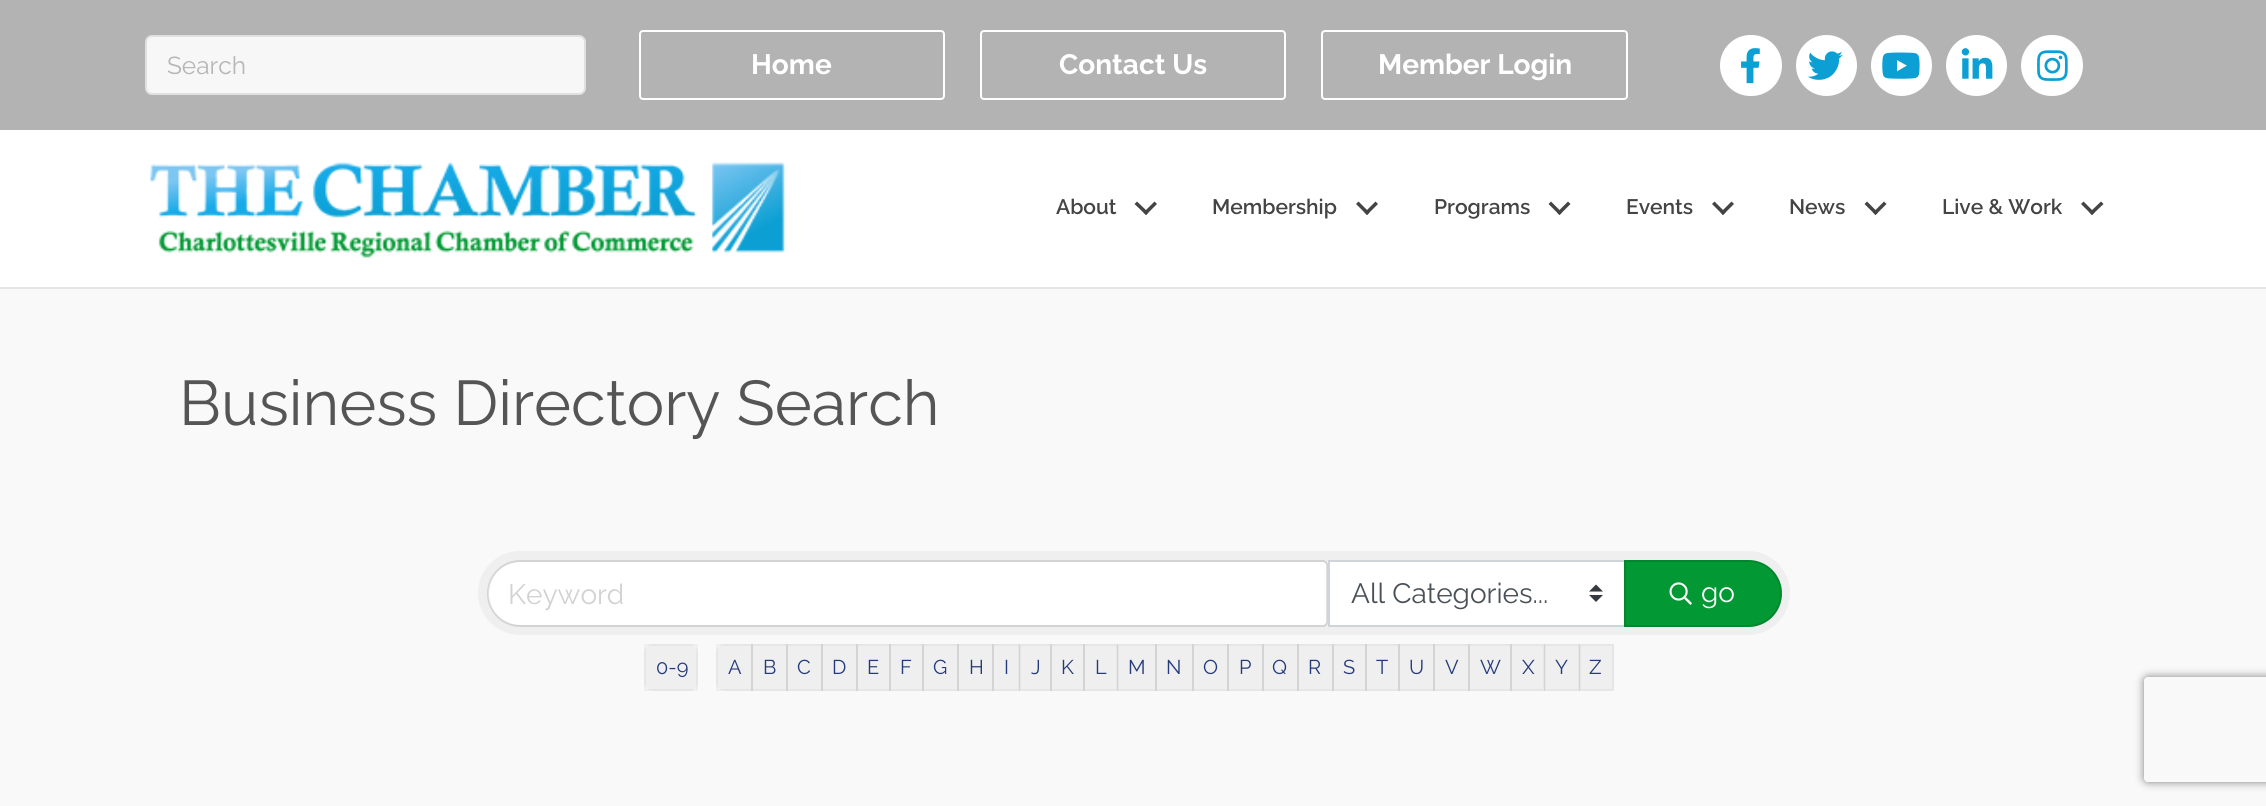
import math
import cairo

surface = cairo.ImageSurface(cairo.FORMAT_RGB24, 2266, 806)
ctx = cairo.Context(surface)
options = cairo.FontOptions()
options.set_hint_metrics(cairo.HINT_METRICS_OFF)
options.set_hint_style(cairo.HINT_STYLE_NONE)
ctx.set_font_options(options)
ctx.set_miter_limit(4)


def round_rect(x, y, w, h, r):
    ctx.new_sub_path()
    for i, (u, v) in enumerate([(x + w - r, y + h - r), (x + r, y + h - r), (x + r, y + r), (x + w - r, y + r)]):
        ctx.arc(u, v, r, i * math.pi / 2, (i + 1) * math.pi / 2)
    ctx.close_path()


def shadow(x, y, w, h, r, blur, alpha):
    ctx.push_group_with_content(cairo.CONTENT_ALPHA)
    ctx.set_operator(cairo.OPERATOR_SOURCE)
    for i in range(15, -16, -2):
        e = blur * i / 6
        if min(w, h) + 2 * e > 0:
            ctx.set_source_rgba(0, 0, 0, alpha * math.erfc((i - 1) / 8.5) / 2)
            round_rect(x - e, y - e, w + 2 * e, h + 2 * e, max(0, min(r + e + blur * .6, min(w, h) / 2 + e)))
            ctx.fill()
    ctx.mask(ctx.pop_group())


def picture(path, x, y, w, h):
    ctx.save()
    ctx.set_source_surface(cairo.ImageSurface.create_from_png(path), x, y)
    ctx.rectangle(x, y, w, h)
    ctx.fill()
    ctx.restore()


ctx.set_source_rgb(0.702, 0.702, 0.702)
ctx.paint()
ctx.set_source_rgb(0.965, 0.965, 0.965)
round_rect(146, 36, 439, 58, 6)
ctx.fill_preserve()
ctx.set_source_rgb(0.878, 0.878, 0.878)
ctx.stroke()
ctx.select_font_face("Raleway")
ctx.set_font_size(24.5)
ctx.set_source_rgb(0.714, 0.714, 0.714)
ctx.move_to(167, 74)
ctx.show_text("Search")
round_rect(640, 31, 304, 68, 3)
ctx.set_source_rgb(1, 1, 1)
ctx.stroke()
ctx.select_font_face("Raleway", cairo.FONT_SLANT_NORMAL, cairo.FONT_WEIGHT_BOLD)
ctx.set_font_size(28)
ctx.move_to(751, 74)
ctx.show_text("Home")
round_rect(981, 31, 304, 68, 3)
ctx.stroke()
ctx.move_to(1059, 74)
ctx.show_text("Contact Us")
round_rect(1322, 31, 305, 68, 3)
ctx.stroke()
ctx.move_to(1378, 74)
ctx.show_text("Member Login")
round_rect(1720, 35, 62, 61, 30.5)
ctx.fill()
picture("img1.png", 1741, 48, 19, 36)
ctx.arc(1826.5, 65.5, 30.5, 0, 2 * math.pi)
ctx.fill()
picture("img2.png", 1808, 51, 35, 29)
ctx.arc(1901.5, 65.5, 30.5, 0, 2 * math.pi)
ctx.fill()
picture("img3.png", 1882, 52, 38, 27)
ctx.arc(1976.5, 65.5, 30.5, 0, 2 * math.pi)
ctx.fill()
picture("img4.png", 1961, 48, 32, 31)
round_rect(2021, 35, 62, 61, 30.5)
ctx.fill()
picture("img5.png", 2037, 50, 31, 31)
ctx.rectangle(0, 130, 2266, 157)
ctx.fill()
ctx.set_source_rgb(0.898, 0.898, 0.898)
ctx.rectangle(0, 287, 2266, 2)
ctx.fill()
picture("img6.png", 150, 162, 635, 96)
ctx.select_font_face("Raleway SemiBold")
ctx.set_font_size(21)
ctx.set_source_rgb(0.267, 0.267, 0.267)
ctx.move_to(1056, 214)
ctx.show_text("About")
ctx.new_path()
ctx.move_to(1154.5, 201.5)
ctx.line_to(1157, 204)
ctx.line_to(1146, 215)
ctx.line_to(1143.5, 212.5)
ctx.close_path()
ctx.fill()
ctx.new_path()
ctx.move_to(1137, 201.5)
ctx.line_to(1148.5, 212.5)
ctx.line_to(1146, 215)
ctx.line_to(1134.5, 204)
ctx.close_path()
ctx.fill()
ctx.move_to(1212, 214)
ctx.show_text("Membership")
ctx.new_path()
ctx.move_to(1375.5, 201.5)
ctx.line_to(1378, 204)
ctx.line_to(1367, 215)
ctx.line_to(1364.5, 212.5)
ctx.close_path()
ctx.fill()
ctx.new_path()
ctx.move_to(1358.5, 201.5)
ctx.line_to(1369.5, 212.5)
ctx.line_to(1367, 215)
ctx.line_to(1356, 204)
ctx.close_path()
ctx.fill()
ctx.move_to(1434, 214)
ctx.show_text("Programs")
ctx.new_path()
ctx.move_to(1568, 201.5)
ctx.line_to(1570.5, 204)
ctx.line_to(1559.5, 215)
ctx.line_to(1557, 212.5)
ctx.close_path()
ctx.fill()
ctx.new_path()
ctx.move_to(1551, 201.5)
ctx.line_to(1562, 212.5)
ctx.line_to(1559.5, 215)
ctx.line_to(1548.5, 204)
ctx.close_path()
ctx.fill()
ctx.move_to(1626, 214)
ctx.show_text("Events")
ctx.new_path()
ctx.move_to(1731.5, 201.5)
ctx.line_to(1734, 204)
ctx.line_to(1723, 215)
ctx.line_to(1720.5, 212.5)
ctx.close_path()
ctx.fill()
ctx.new_path()
ctx.move_to(1714.5, 201.5)
ctx.line_to(1725.5, 212.5)
ctx.line_to(1723, 215)
ctx.line_to(1712, 204)
ctx.close_path()
ctx.fill()
ctx.move_to(1789, 214)
ctx.show_text("News")
ctx.new_path()
ctx.move_to(1884, 201.5)
ctx.line_to(1886.5, 204)
ctx.line_to(1875.5, 215)
ctx.line_to(1873, 212.5)
ctx.close_path()
ctx.fill()
ctx.new_path()
ctx.move_to(1867, 201.5)
ctx.line_to(1878, 212.5)
ctx.line_to(1875.5, 215)
ctx.line_to(1864.5, 204)
ctx.close_path()
ctx.fill()
ctx.move_to(1942, 214)
ctx.show_text("Live & Work")
ctx.new_path()
ctx.move_to(2101, 201.5)
ctx.line_to(2103.5, 204)
ctx.line_to(2092, 215)
ctx.line_to(2089.5, 212.5)
ctx.close_path()
ctx.fill()
ctx.new_path()
ctx.move_to(2083.5, 201.5)
ctx.line_to(2094.5, 212.5)
ctx.line_to(2092, 215)
ctx.line_to(2081, 204)
ctx.close_path()
ctx.fill()
ctx.set_source_rgb(0.976, 0.976, 0.976)
ctx.rectangle(0, 289, 2266, 517)
ctx.fill()
ctx.select_font_face("Raleway")
ctx.set_font_size(63)
ctx.set_source_rgb(0.333, 0.333, 0.333)
ctx.move_to(179, 425)
ctx.show_text("Business Directory Search")
ctx.set_source_rgb(0.937, 0.937, 0.937)
round_rect(478, 551, 1312, 84, 42)
ctx.fill()
ctx.set_source_rgb(1, 1, 1)
ctx.new_path()
ctx.move_to(519.5, 562)
ctx.line_to(1323, 562)
ctx.curve_to(1325, 562, 1327, 564, 1327, 566)
ctx.line_to(1327, 621)
ctx.curve_to(1327, 623, 1325, 625, 1323, 625)
ctx.line_to(519.5, 625)
ctx.curve_to(502, 625, 488, 611, 488, 593.5)
ctx.curve_to(488, 576, 502, 562, 519.5, 562)
ctx.close_path()
ctx.fill()
ctx.new_path()
ctx.move_to(520.5, 561)
ctx.line_to(1323, 561)
ctx.curve_to(1325, 561, 1327, 563, 1327, 565)
ctx.line_to(1327, 622)
ctx.curve_to(1327, 624, 1325, 626, 1323, 626)
ctx.line_to(520.5, 626)
ctx.curve_to(502.5, 626, 488, 611.5, 488, 593.5)
ctx.curve_to(488, 575.5, 502.5, 561, 520.5, 561)
ctx.close_path()
ctx.set_source_rgba(0, 0, 0, 0.12)
ctx.stroke()
ctx.set_font_size(28)
ctx.set_source_rgb(0.824, 0.824, 0.824)
ctx.move_to(508, 604)
ctx.show_text("Keyword")
ctx.set_source_rgb(1, 1, 1)
ctx.rectangle(1330, 562, 294, 63)
ctx.fill()
ctx.set_source_rgb(0.204, 0.227, 0.251)
ctx.new_path()
ctx.move_to(1596, 584.5)
ctx.line_to(1589, 591.5)
ctx.line_to(1603, 591.5)
ctx.close_path()
ctx.move_to(1596, 602)
ctx.line_to(1589, 595)
ctx.line_to(1603, 595)
ctx.close_path()
ctx.fill()
ctx.rectangle(1329, 561, 296, 65)
ctx.set_source_rgb(0.808, 0.831, 0.855)
ctx.stroke()
ctx.set_source_rgb(0.286, 0.314, 0.341)
ctx.move_to(1351, 603)
ctx.show_text("All Categories...")
ctx.set_source_rgb(0.008, 0.6, 0.204)
ctx.new_path()
ctx.move_to(1624, 560)
ctx.line_to(1748.5, 560)
ctx.curve_to(1767, 560, 1782, 575, 1782, 593.5)
ctx.curve_to(1782, 612, 1767, 627, 1748.5, 627)
ctx.line_to(1624, 627)
ctx.close_path()
ctx.fill()
ctx.new_path()
ctx.move_to(1625, 561)
ctx.line_to(1748.5, 561)
ctx.curve_to(1766.5, 561, 1781, 575.5, 1781, 593.5)
ctx.curve_to(1781, 611.5, 1766.5, 626, 1748.5, 626)
ctx.line_to(1625, 626)
ctx.close_path()
ctx.set_source_rgba(0, 0, 0, 0.12)
ctx.stroke()
picture("img7.png", 1669, 582, 23, 23)
ctx.set_source_rgb(1, 1, 1)
ctx.move_to(1701, 602)
ctx.show_text("go")
ctx.set_source_rgb(0.937, 0.937, 0.937)
round_rect(644, 644, 54, 47, 9)
ctx.fill()
ctx.rectangle(645, 645, 52, 45)
ctx.set_source_rgba(0, 0, 0, 0.04)
ctx.stroke()
ctx.set_font_size(20)
ctx.set_source_rgb(0.141, 0.227, 0.482)
ctx.move_to(656, 674)
ctx.show_text("0-9")
ctx.set_source_rgb(0.937, 0.937, 0.937)
ctx.new_path()
ctx.move_to(725, 644)
ctx.line_to(753, 644)
ctx.line_to(753, 691)
ctx.line_to(725, 691)
ctx.curve_to(720, 691, 716, 687, 716, 682)
ctx.line_to(716, 653)
ctx.curve_to(716, 648, 720, 644, 725, 644)
ctx.close_path()
ctx.fill()
ctx.rectangle(717, 645, 35, 45)
ctx.set_source_rgba(0, 0, 0, 0.04)
ctx.stroke()
ctx.set_source_rgb(0.141, 0.227, 0.482)
ctx.move_to(728, 674)
ctx.show_text("A")
ctx.set_source_rgba(0, 0, 0, 0.04)
ctx.rectangle(751, 644, 37, 47)
ctx.fill()
ctx.rectangle(752, 645, 35, 45)
ctx.stroke()
ctx.set_source_rgb(0.141, 0.227, 0.482)
ctx.move_to(763, 674)
ctx.show_text("B")
ctx.set_source_rgba(0, 0, 0, 0.04)
ctx.rectangle(786, 644, 37, 47)
ctx.fill()
ctx.rectangle(787, 645, 35, 45)
ctx.stroke()
ctx.set_source_rgb(0.141, 0.227, 0.482)
ctx.move_to(797, 674)
ctx.show_text("C")
ctx.set_source_rgba(0, 0, 0, 0.04)
ctx.rectangle(821, 644, 37, 47)
ctx.fill()
ctx.rectangle(822, 645, 35, 45)
ctx.stroke()
ctx.set_source_rgb(0.141, 0.227, 0.482)
ctx.move_to(832, 674)
ctx.show_text("D")
ctx.set_source_rgba(0, 0, 0, 0.04)
ctx.rectangle(856, 644, 35, 47)
ctx.fill()
ctx.rectangle(857, 645, 33, 45)
ctx.stroke()
ctx.set_source_rgb(0.141, 0.227, 0.482)
ctx.move_to(867, 674)
ctx.show_text("E")
ctx.set_source_rgba(0, 0, 0, 0.04)
ctx.rectangle(889, 644, 35, 47)
ctx.fill()
ctx.rectangle(890, 645, 33, 45)
ctx.stroke()
ctx.set_source_rgb(0.141, 0.227, 0.482)
ctx.move_to(900, 674)
ctx.show_text("F")
ctx.set_source_rgba(0, 0, 0, 0.04)
ctx.rectangle(922, 644, 37, 47)
ctx.fill()
ctx.rectangle(923, 645, 35, 45)
ctx.stroke()
ctx.set_source_rgb(0.141, 0.227, 0.482)
ctx.move_to(933, 674)
ctx.show_text("G")
ctx.set_source_rgba(0, 0, 0, 0.04)
ctx.rectangle(957, 644, 37, 47)
ctx.fill()
ctx.rectangle(958, 645, 35, 45)
ctx.stroke()
ctx.set_source_rgb(0.141, 0.227, 0.482)
ctx.move_to(969, 674)
ctx.show_text("H")
ctx.set_source_rgba(0, 0, 0, 0.04)
ctx.rectangle(992, 644, 28, 47)
ctx.fill()
ctx.rectangle(993, 645, 26, 45)
ctx.stroke()
ctx.set_source_rgb(0.141, 0.227, 0.482)
ctx.move_to(1004, 674)
ctx.show_text("I")
ctx.set_source_rgba(0, 0, 0, 0.04)
ctx.rectangle(1019, 644, 33, 47)
ctx.fill()
ctx.rectangle(1020, 645, 31, 45)
ctx.stroke()
ctx.set_source_rgb(0.141, 0.227, 0.482)
ctx.move_to(1031, 674)
ctx.show_text("J")
ctx.set_source_rgba(0, 0, 0, 0.04)
ctx.rectangle(1050, 644, 35, 47)
ctx.fill()
ctx.rectangle(1051, 645, 33, 45)
ctx.stroke()
ctx.set_source_rgb(0.141, 0.227, 0.482)
ctx.move_to(1061, 674)
ctx.show_text("K")
ctx.set_source_rgba(0, 0, 0, 0.04)
ctx.rectangle(1083, 644, 35, 47)
ctx.fill()
ctx.rectangle(1084, 645, 33, 45)
ctx.stroke()
ctx.set_source_rgb(0.141, 0.227, 0.482)
ctx.move_to(1095, 674)
ctx.show_text("L")
ctx.set_source_rgba(0, 0, 0, 0.04)
ctx.rectangle(1117, 644, 40, 47)
ctx.fill()
ctx.rectangle(1118, 645, 38, 45)
ctx.stroke()
ctx.set_source_rgb(0.141, 0.227, 0.482)
ctx.move_to(1128, 674)
ctx.show_text("M")
ctx.set_source_rgba(0, 0, 0, 0.04)
ctx.rectangle(1155, 644, 39, 47)
ctx.fill()
ctx.rectangle(1156, 645, 37, 45)
ctx.stroke()
ctx.set_source_rgb(0.141, 0.227, 0.482)
ctx.move_to(1166, 674)
ctx.show_text("N")
ctx.set_source_rgba(0, 0, 0, 0.04)
ctx.rectangle(1192, 644, 37, 47)
ctx.fill()
ctx.rectangle(1193, 645, 35, 45)
ctx.stroke()
ctx.set_source_rgb(0.141, 0.227, 0.482)
ctx.move_to(1203, 674)
ctx.show_text("O")
ctx.set_source_rgba(0, 0, 0, 0.04)
ctx.rectangle(1227, 644, 37, 47)
ctx.fill()
ctx.rectangle(1228, 645, 35, 45)
ctx.stroke()
ctx.set_source_rgb(0.141, 0.227, 0.482)
ctx.move_to(1239, 674)
ctx.show_text("P")
ctx.set_source_rgba(0, 0, 0, 0.04)
ctx.rectangle(1262, 644, 37, 47)
ctx.fill()
ctx.rectangle(1263, 645, 35, 45)
ctx.stroke()
ctx.set_source_rgb(0.141, 0.227, 0.482)
ctx.move_to(1272, 674)
ctx.show_text("Q")
ctx.set_source_rgba(0, 0, 0, 0.04)
ctx.rectangle(1297, 644, 37, 47)
ctx.fill()
ctx.rectangle(1298, 645, 35, 45)
ctx.stroke()
ctx.set_source_rgb(0.141, 0.227, 0.482)
ctx.move_to(1308, 674)
ctx.show_text("R")
ctx.set_source_rgba(0, 0, 0, 0.04)
ctx.rectangle(1332, 644, 35, 47)
ctx.fill()
ctx.rectangle(1333, 645, 33, 45)
ctx.stroke()
ctx.set_source_rgb(0.141, 0.227, 0.482)
ctx.move_to(1343, 674)
ctx.show_text("S")
ctx.set_source_rgba(0, 0, 0, 0.04)
ctx.rectangle(1365, 644, 35, 47)
ctx.fill()
ctx.rectangle(1366, 645, 33, 45)
ctx.stroke()
ctx.set_source_rgb(0.141, 0.227, 0.482)
ctx.move_to(1376, 674)
ctx.show_text("T")
ctx.set_source_rgba(0, 0, 0, 0.04)
ctx.rectangle(1398, 644, 37, 47)
ctx.fill()
ctx.rectangle(1399, 645, 35, 45)
ctx.stroke()
ctx.set_source_rgb(0.141, 0.227, 0.482)
ctx.move_to(1409, 674)
ctx.show_text("U")
ctx.set_source_rgba(0, 0, 0, 0.04)
ctx.rectangle(1433, 644, 37, 47)
ctx.fill()
ctx.rectangle(1434, 645, 35, 45)
ctx.stroke()
ctx.set_source_rgb(0.141, 0.227, 0.482)
ctx.move_to(1445, 674)
ctx.show_text("V")
ctx.set_source_rgba(0, 0, 0, 0.04)
ctx.rectangle(1468, 644, 44, 47)
ctx.fill()
ctx.rectangle(1469, 645, 42, 45)
ctx.stroke()
ctx.set_source_rgb(0.141, 0.227, 0.482)
ctx.move_to(1480, 674)
ctx.show_text("W")
ctx.set_source_rgba(0, 0, 0, 0.04)
ctx.rectangle(1510, 644, 35, 47)
ctx.fill()
ctx.rectangle(1511, 645, 33, 45)
ctx.stroke()
ctx.set_source_rgb(0.141, 0.227, 0.482)
ctx.move_to(1522, 674)
ctx.show_text("X")
ctx.set_source_rgba(0, 0, 0, 0.04)
ctx.rectangle(1544, 644, 36, 47)
ctx.fill()
ctx.rectangle(1545, 645, 34, 45)
ctx.stroke()
ctx.set_source_rgb(0.141, 0.227, 0.482)
ctx.move_to(1555, 674)
ctx.show_text("Y")
ctx.set_source_rgba(0, 0, 0, 0.04)
ctx.rectangle(1579, 644, 35, 47)
ctx.fill()
ctx.rectangle(1580, 645, 33, 45)
ctx.stroke()
ctx.set_source_rgb(0.141, 0.227, 0.482)
ctx.move_to(1589, 674)
ctx.show_text("Z")
ctx.save()
ctx.set_fill_rule(cairo.FILL_RULE_EVEN_ODD)
ctx.new_path()
ctx.move_to(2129, 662)
ctx.line_to(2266, 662)
ctx.line_to(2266, 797)
ctx.line_to(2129, 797)
ctx.close_path()
ctx.move_to(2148, 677)
ctx.line_to(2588, 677)
ctx.curve_to(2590, 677, 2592, 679, 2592, 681)
ctx.line_to(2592, 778)
ctx.curve_to(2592, 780, 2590, 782, 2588, 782)
ctx.line_to(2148, 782)
ctx.curve_to(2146, 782, 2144, 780, 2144, 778)
ctx.line_to(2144, 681)
ctx.curve_to(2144, 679, 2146, 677, 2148, 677)
ctx.close_path()
ctx.clip()
ctx.set_source_rgb(0.502, 0.502, 0.502)
shadow(2144, 677, 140, 105, 4, 4.5, 1)
ctx.restore()
surface.write_to_png("page.png")
